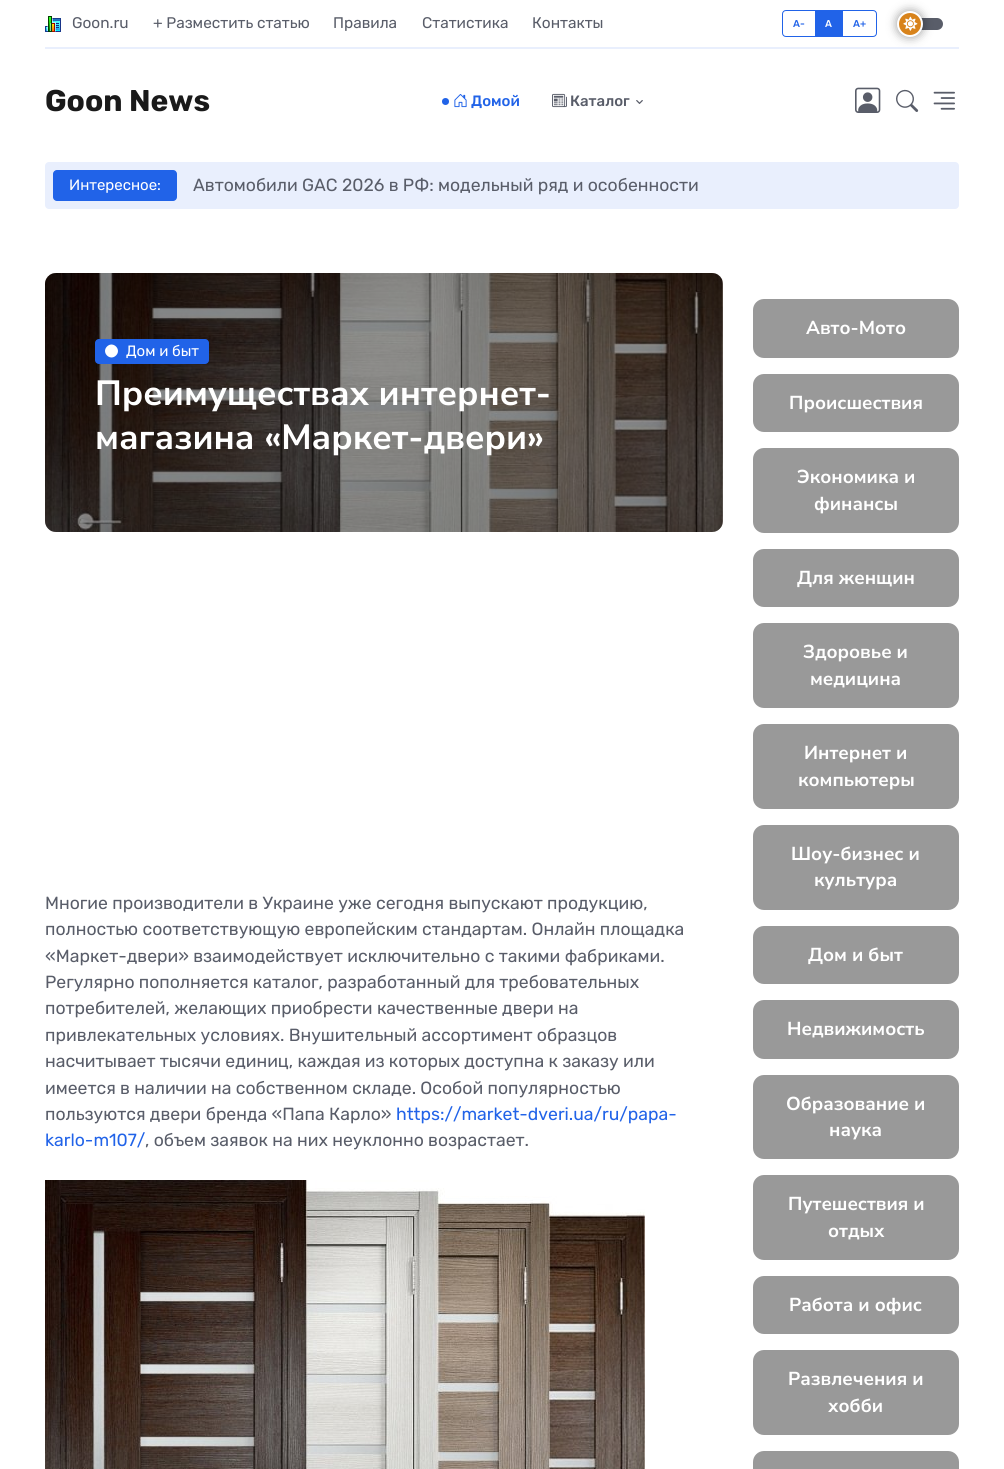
import math
import cairo

surface = cairo.ImageSurface(cairo.FORMAT_RGB24, 1004, 1469)
ctx = cairo.Context(surface)
options = cairo.FontOptions()
options.set_hint_metrics(cairo.HINT_METRICS_OFF)
options.set_hint_style(cairo.HINT_STYLE_NONE)
ctx.set_font_options(options)
ctx.set_miter_limit(4)


def round_rect(x, y, w, h, r):
    ctx.new_sub_path()
    for i, (u, v) in enumerate([(x + w - r, y + h - r), (x + r, y + h - r), (x + r, y + r), (x + w - r, y + r)]):
        ctx.arc(u, v, r, i * math.pi / 2, (i + 1) * math.pi / 2)
    ctx.close_path()


def shadow(x, y, w, h, r, blur, alpha):
    ctx.push_group_with_content(cairo.CONTENT_ALPHA)
    ctx.set_operator(cairo.OPERATOR_SOURCE)
    for i in range(15, -16, -2):
        e = blur * i / 6
        if min(w, h) + 2 * e > 0:
            ctx.set_source_rgba(0, 0, 0, alpha * math.erfc((i - 1) / 8.5) / 2)
            round_rect(x - e, y - e, w + 2 * e, h + 2 * e, max(0, min(r + e + blur * .6, min(w, h) / 2 + e)))
            ctx.fill()
    ctx.mask(ctx.pop_group())


def picture(path, x, y, w, h):
    ctx.save()
    ctx.set_source_surface(cairo.ImageSurface.create_from_png(path), x, y)
    ctx.rectangle(x, y, w, h)
    ctx.fill()
    ctx.restore()


ctx.set_source_rgb(1, 1, 1)
ctx.paint()
picture("img1.png", 45, 16, 16, 16)
ctx.select_font_face("Rubik")
ctx.set_font_size(15.4)
ctx.set_source_rgb(0.349, 0.365, 0.412)
ctx.move_to(72, 28)
ctx.show_text("Goon.ru")
ctx.move_to(153, 28)
ctx.show_text("+ Разместить статью")
ctx.move_to(333, 28)
ctx.show_text("Правила")
ctx.move_to(422, 28)
ctx.show_text("Статистика")
ctx.move_to(532, 28)
ctx.show_text("Контакты")
ctx.new_path()
ctx.move_to(786, 10.5)
ctx.line_to(815.5, 10.5)
ctx.line_to(815.5, 36.5)
ctx.line_to(786, 36.5)
ctx.curve_to(784, 36.5, 782.5, 35, 782.5, 33)
ctx.line_to(782.5, 14)
ctx.curve_to(782.5, 12, 784, 10.5, 786, 10.5)
ctx.close_path()
ctx.set_source_rgb(0.129, 0.388, 0.91)
ctx.set_line_width(1)
ctx.stroke()
ctx.select_font_face("Rubik Medium")
ctx.set_font_size(10)
ctx.move_to(793, 27)
ctx.show_text("A-")
ctx.rectangle(816, 10, 26, 27)
ctx.fill()
ctx.set_source_rgb(1, 1, 1)
ctx.move_to(825, 27)
ctx.show_text("A")
ctx.new_path()
ctx.move_to(842.5, 10.5)
ctx.line_to(873, 10.5)
ctx.curve_to(875, 10.5, 876.5, 12, 876.5, 14)
ctx.line_to(876.5, 33)
ctx.curve_to(876.5, 35, 875, 36.5, 873, 36.5)
ctx.line_to(842.5, 36.5)
ctx.close_path()
ctx.set_source_rgb(0.129, 0.388, 0.91)
ctx.stroke()
ctx.move_to(853, 27)
ctx.show_text("A+")
ctx.set_source_rgb(0.349, 0.365, 0.412)
round_rect(901, 18, 42, 12, 6)
ctx.fill()
ctx.set_source_rgb(0, 0, 0)
shadow(897, 11, 26, 26, 13, 5, 0.4)
ctx.set_source_rgb(0.847, 0.514, 0.106)
ctx.arc(910, 24, 12, 0, 2 * math.pi)
ctx.fill_preserve()
ctx.set_source_rgb(1, 1, 1)
ctx.set_line_width(2)
ctx.stroke()
picture("img2.png", 903, 16, 15, 15)
ctx.set_source_rgb(0.914, 0.937, 0.992)
ctx.rectangle(45, 47, 914, 2)
ctx.fill()
ctx.select_font_face("Rubik", cairo.FONT_SLANT_NORMAL, cairo.FONT_WEIGHT_BOLD)
ctx.set_font_size(30)
ctx.set_source_rgb(0.102, 0.102, 0.102)
ctx.move_to(45, 111)
ctx.show_text("Goon News")
ctx.set_source_rgb(0.129, 0.388, 0.91)
ctx.new_path()
ctx.arc(445.5, 101.5, 3.5, 0, 2 * math.pi)
ctx.fill()
picture("img3.png", 454, 94, 13, 14)
ctx.select_font_face("Rubik Medium")
ctx.set_font_size(15)
ctx.move_to(471, 106)
ctx.show_text("Домой")
picture("img4.png", 552, 93, 15, 15)
ctx.set_source_rgb(0.349, 0.365, 0.412)
ctx.move_to(570, 106)
ctx.show_text("Каталог")
picture("img5.png", 636, 100, 7, 4)
picture("img6.png", 855, 87, 26, 26)
picture("img7.png", 896, 89, 23, 23)
picture("img8.png", 933, 91, 22, 19)
ctx.set_source_rgb(0.914, 0.937, 0.992)
round_rect(45, 162, 914, 47, 4)
ctx.fill()
ctx.set_source_rgb(0.129, 0.388, 0.91)
round_rect(53, 170, 124, 31, 4)
ctx.fill()
ctx.select_font_face("Rubik")
ctx.set_source_rgb(1, 1, 1)
ctx.move_to(69, 190)
ctx.show_text("Интересное:")
ctx.set_font_size(17.6)
ctx.set_source_rgb(0.349, 0.365, 0.412)
ctx.move_to(193, 191)
ctx.show_text("Автомобили GAC 2026 в РФ: модельный ряд и особенности")
picture("img9.png", 45, 273, 678, 259)
ctx.set_source_rgba(0, 0, 0, 0.4)
round_rect(45, 273, 678, 259, 11)
ctx.fill()
ctx.set_source_rgb(0.129, 0.388, 0.91)
round_rect(95, 339, 114, 25, 4)
ctx.fill()
ctx.set_source_rgb(1, 1, 1)
ctx.new_path()
ctx.move_to(107, 346.5)
ctx.curve_to(113, 340.5, 122, 349.5, 116, 355.5)
ctx.curve_to(110, 361.5, 101, 352.5, 107, 346.5)
ctx.close_path()
ctx.fill()
ctx.set_font_size(15)
ctx.move_to(126, 356)
ctx.show_text("Дом и быт")
ctx.select_font_face("Nunito Sans", cairo.FONT_SLANT_NORMAL, cairo.FONT_WEIGHT_BOLD)
ctx.set_font_size(35)
ctx.move_to(95, 405)
ctx.show_text("Преимуществах интернет-")
ctx.move_to(95, 449)
ctx.show_text("магазина «Маркет-двери»")
ctx.select_font_face("Rubik")
ctx.set_font_size(17.6)
ctx.set_source_rgb(0.349, 0.365, 0.412)
ctx.move_to(45, 909)
ctx.show_text("Многие производители в Украине уже сегодня выпускают продукцию,")
ctx.move_to(45, 935)
ctx.show_text("полностью соответствующую европейским стандартам. Онлайн площадка")
ctx.move_to(45, 962)
ctx.show_text("«Маркет-двери» взаимодействует исключительно с такими фабриками.")
ctx.move_to(45, 988)
ctx.show_text("Регулярно пополняется каталог, разработанный для требовательных")
ctx.move_to(45, 1014)
ctx.show_text("потребителей, желающих приобрести качественные двери на")
ctx.move_to(45, 1041)
ctx.show_text("привлекательных условиях. Внушительный ассортимент образцов")
ctx.move_to(45, 1067)
ctx.show_text("насчитывает тысячи единиц, каждая из которых доступна к заказу или")
ctx.move_to(45, 1094)
ctx.show_text("имеется в наличии на собственном складе. Особой популярностью")
ctx.move_to(45, 1120)
ctx.show_text("пользуются двери бренда «Папа Карло»")
ctx.set_source_rgb(0.129, 0.388, 0.91)
ctx.move_to(396, 1120)
ctx.show_text("https://market-dveri.ua/ru/papa-")
ctx.move_to(45, 1146)
ctx.show_text("karlo-m107/")
ctx.set_source_rgb(0.349, 0.365, 0.412)
ctx.move_to(145, 1146)
ctx.show_text(", объем заявок на них неуклонно возрастает.")
picture("img10.png", 45, 1180, 600, 289)
ctx.set_source_rgb(0.6, 0.6, 0.6)
round_rect(753, 299, 206, 59, 11)
ctx.fill()
ctx.select_font_face("Nunito Sans", cairo.FONT_SLANT_NORMAL, cairo.FONT_WEIGHT_BOLD)
ctx.set_font_size(18.75)
ctx.set_source_rgb(1, 1, 1)
ctx.move_to(806, 334)
ctx.show_text("Авто-Мото")
ctx.set_source_rgb(0.6, 0.6, 0.6)
round_rect(753, 374, 206, 58, 11)
ctx.fill()
ctx.set_source_rgb(1, 1, 1)
ctx.move_to(789, 409)
ctx.show_text("Происшествия")
ctx.set_source_rgb(0.6, 0.6, 0.6)
round_rect(753, 448, 206, 85, 11)
ctx.fill()
ctx.set_source_rgb(1, 1, 1)
ctx.move_to(797, 483)
ctx.show_text("Экономика и")
ctx.move_to(814, 510)
ctx.show_text("финансы")
ctx.set_source_rgb(0.6, 0.6, 0.6)
round_rect(753, 549, 206, 58, 11)
ctx.fill()
ctx.set_source_rgb(1, 1, 1)
ctx.move_to(797, 584)
ctx.show_text("Для женщин")
ctx.set_source_rgb(0.6, 0.6, 0.6)
round_rect(753, 623, 206, 85, 11)
ctx.fill()
ctx.set_source_rgb(1, 1, 1)
ctx.move_to(803, 658)
ctx.show_text("Здоровье и")
ctx.move_to(810, 685)
ctx.show_text("медицина")
ctx.set_source_rgb(0.6, 0.6, 0.6)
round_rect(753, 724, 206, 85, 11)
ctx.fill()
ctx.set_source_rgb(1, 1, 1)
ctx.move_to(804, 759)
ctx.show_text("Интернет и")
ctx.move_to(798, 786)
ctx.show_text("компьютеры")
ctx.set_source_rgb(0.6, 0.6, 0.6)
round_rect(753, 825, 206, 85, 11)
ctx.fill()
ctx.set_source_rgb(1, 1, 1)
ctx.move_to(791, 860)
ctx.show_text("Шоу-бизнес и")
ctx.move_to(814, 886)
ctx.show_text("культура")
ctx.set_source_rgb(0.6, 0.6, 0.6)
round_rect(753, 926, 206, 58, 11)
ctx.fill()
ctx.set_source_rgb(1, 1, 1)
ctx.move_to(808, 961)
ctx.show_text("Дом и быт")
ctx.set_source_rgb(0.6, 0.6, 0.6)
round_rect(753, 1000, 206, 59, 11)
ctx.fill()
ctx.set_source_rgb(1, 1, 1)
ctx.move_to(787, 1035)
ctx.show_text("Недвижимость")
ctx.set_source_rgb(0.6, 0.6, 0.6)
round_rect(753, 1075, 206, 84, 11)
ctx.fill()
ctx.set_source_rgb(1, 1, 1)
ctx.move_to(786, 1110)
ctx.show_text("Образование и")
ctx.move_to(829, 1136)
ctx.show_text("наука")
ctx.set_source_rgb(0.6, 0.6, 0.6)
round_rect(753, 1175, 206, 85, 11)
ctx.fill()
ctx.set_source_rgb(1, 1, 1)
ctx.move_to(788, 1210)
ctx.show_text("Путешествия и")
ctx.move_to(828, 1237)
ctx.show_text("отдых")
ctx.set_source_rgb(0.6, 0.6, 0.6)
round_rect(753, 1276, 206, 58, 11)
ctx.fill()
ctx.set_source_rgb(1, 1, 1)
ctx.move_to(789, 1311)
ctx.show_text("Работа и офис")
ctx.set_source_rgb(0.6, 0.6, 0.6)
round_rect(753, 1350, 206, 85, 11)
ctx.fill()
ctx.set_source_rgb(1, 1, 1)
ctx.move_to(788, 1385)
ctx.show_text("Развлечения и")
ctx.move_to(828, 1412)
ctx.show_text("хобби")
ctx.set_source_rgb(0.6, 0.6, 0.6)
round_rect(753, 1451, 206, 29, 11)
ctx.fill()
surface.write_to_png("page.png")
